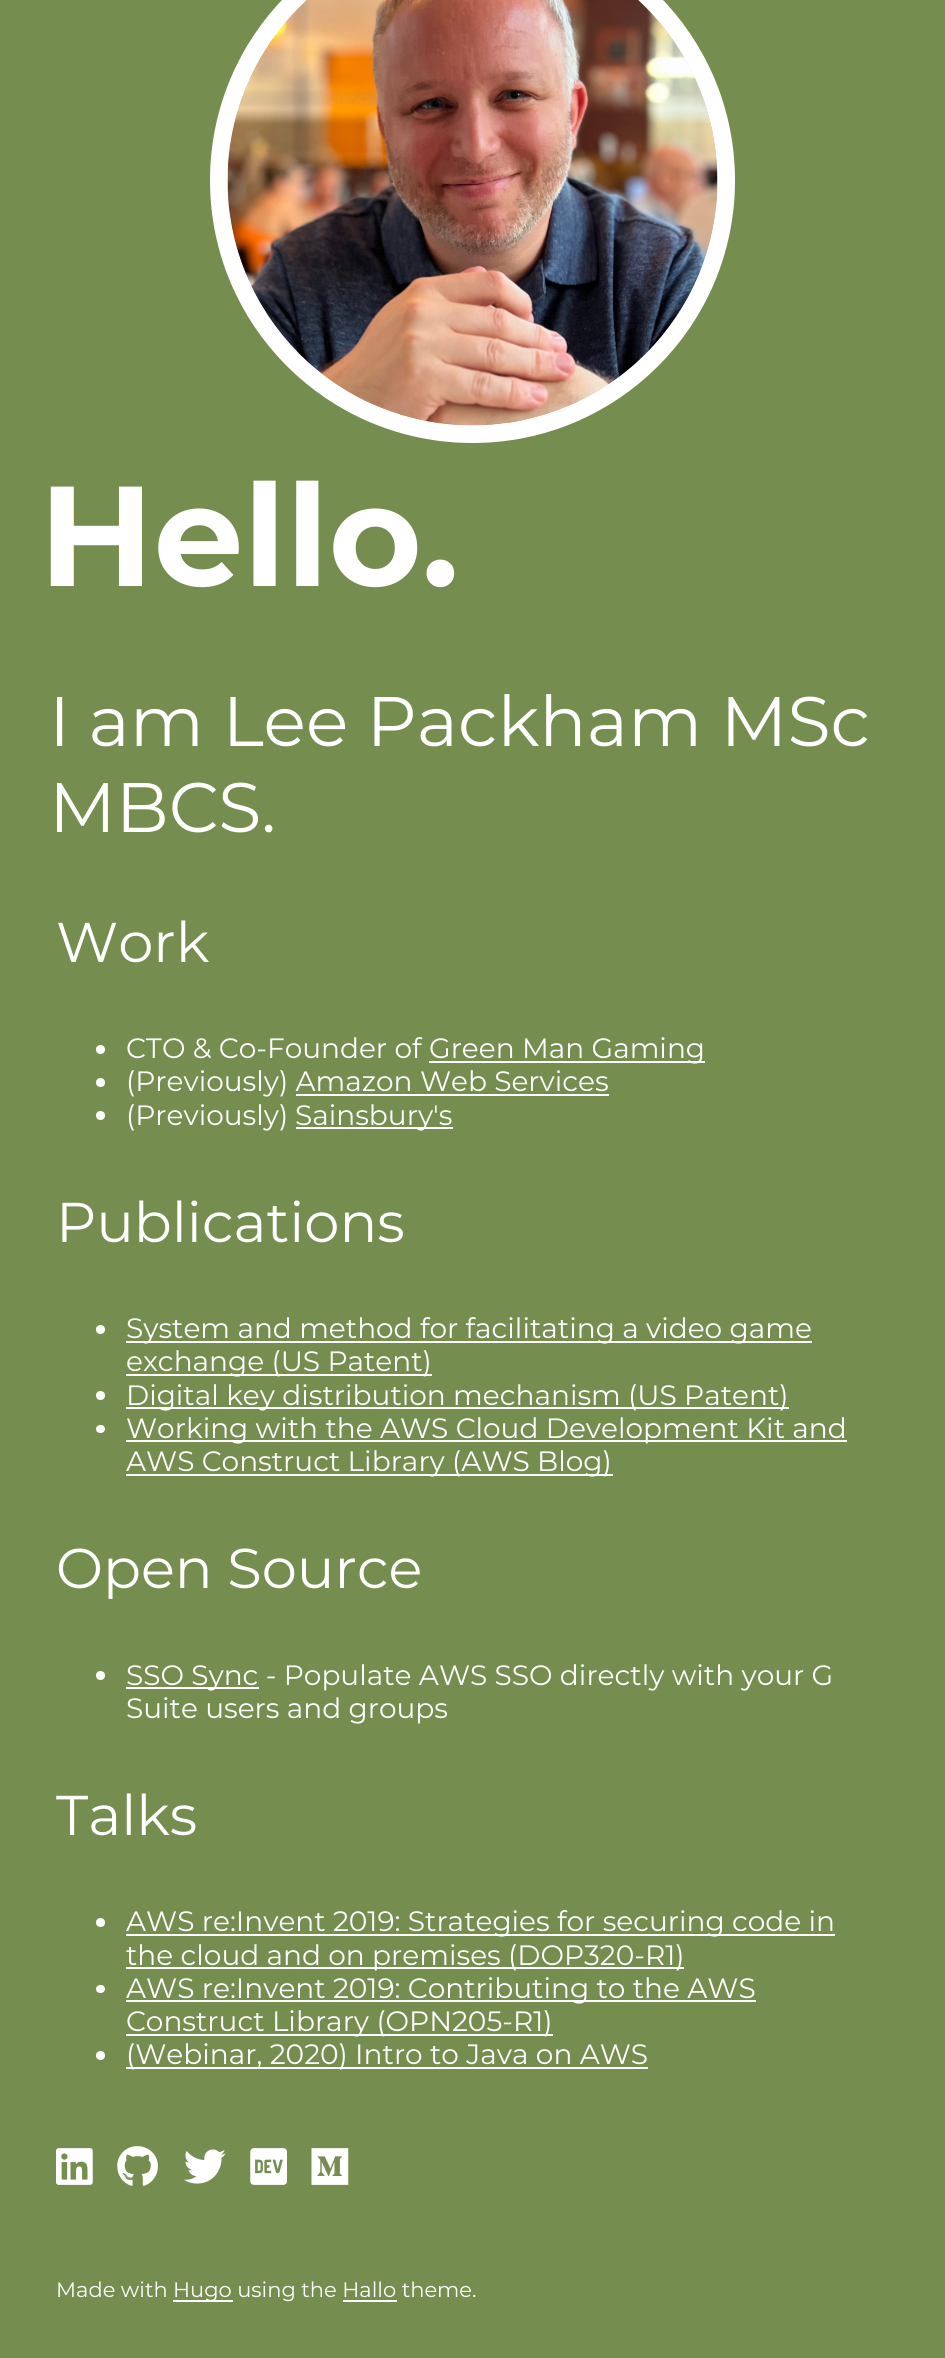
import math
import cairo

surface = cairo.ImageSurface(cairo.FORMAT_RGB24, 945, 2358)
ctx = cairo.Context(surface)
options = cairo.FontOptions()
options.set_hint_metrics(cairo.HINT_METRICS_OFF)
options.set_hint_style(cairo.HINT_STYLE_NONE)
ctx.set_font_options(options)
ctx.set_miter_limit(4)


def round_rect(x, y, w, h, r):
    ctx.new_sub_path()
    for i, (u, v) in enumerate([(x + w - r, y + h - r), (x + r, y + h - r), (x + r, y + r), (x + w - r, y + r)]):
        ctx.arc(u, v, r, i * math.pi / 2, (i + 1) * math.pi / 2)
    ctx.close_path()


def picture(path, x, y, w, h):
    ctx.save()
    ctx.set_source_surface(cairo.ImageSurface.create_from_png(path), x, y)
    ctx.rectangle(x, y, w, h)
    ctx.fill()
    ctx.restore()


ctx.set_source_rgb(0.459, 0.557, 0.31)
ctx.paint()
ctx.arc(472.5, 180.5, 253.5, 0, 2 * math.pi)
ctx.set_source_rgb(1, 1, 1)
ctx.set_line_width(18)
ctx.stroke()
picture("img1.png", 227, 0, 491, 426)
ctx.select_font_face("Montserrat", cairo.FONT_SLANT_NORMAL, cairo.FONT_WEIGHT_BOLD)
ctx.set_font_size(142)
ctx.move_to(39, 586)
ctx.show_text("Hello.")
ctx.select_font_face("Montserrat")
ctx.set_font_size(70)
ctx.move_to(49, 746)
ctx.show_text("I am Lee Packham MSc")
ctx.move_to(49, 832)
ctx.show_text("MBCS.")
ctx.set_font_size(56)
ctx.move_to(56, 962)
ctx.show_text("Work")
ctx.new_path()
ctx.arc(100.5, 1049.5, 4.5, 0, 2 * math.pi)
ctx.fill()
ctx.set_font_size(28)
ctx.move_to(126, 1058)
ctx.show_text("CTO & Co-Founder of")
ctx.rectangle(429, 1061, 276, 2)
ctx.fill()
ctx.move_to(429, 1058)
ctx.show_text("Green Man Gaming")
ctx.new_path()
ctx.arc(100.5, 1082.5, 4.5, 0, 2 * math.pi)
ctx.fill()
ctx.move_to(126, 1091)
ctx.show_text("(Previously) Amazon Web Services")
ctx.rectangle(296, 1094, 313, 2)
ctx.fill()
ctx.arc(100.5, 1115.5, 4.5, 0, 2 * math.pi)
ctx.fill()
ctx.move_to(126, 1125)
ctx.show_text("(Previously)")
ctx.rectangle(296, 1127, 157, 2)
ctx.fill()
ctx.move_to(295, 1125)
ctx.show_text("Sainsbury's")
ctx.set_font_size(56)
ctx.move_to(56, 1242)
ctx.show_text("Publications")
ctx.new_path()
ctx.arc(100.5, 1329.5, 4.5, 0, 2 * math.pi)
ctx.fill()
ctx.rectangle(126, 1341, 686, 2)
ctx.fill()
ctx.set_font_size(28)
ctx.move_to(126, 1338)
ctx.show_text("System and method for facilitating a video game")
ctx.rectangle(126, 1374, 306, 2)
ctx.fill()
ctx.move_to(126, 1371)
ctx.show_text("exchange (US Patent)")
ctx.new_path()
ctx.arc(100.5, 1395.5, 4.5, 0, 2 * math.pi)
ctx.fill()
ctx.rectangle(126, 1407, 663, 2)
ctx.fill()
ctx.move_to(126, 1405)
ctx.show_text("Digital key distribution mechanism (US Patent)")
round_rect(96, 1425, 9, 8, 4)
ctx.fill()
ctx.rectangle(126, 1440, 721, 2)
ctx.fill()
ctx.move_to(126, 1438)
ctx.show_text("Working with the AWS Cloud Development Kit and")
ctx.rectangle(126, 1474, 487, 2)
ctx.fill()
ctx.move_to(126, 1471)
ctx.show_text("AWS Construct Library (AWS Blog)")
ctx.set_font_size(56)
ctx.move_to(56, 1588)
ctx.show_text("Open Source")
ctx.new_path()
ctx.arc(100.5, 1675.5, 4.5, 0, 2 * math.pi)
ctx.fill()
ctx.rectangle(126, 1687, 133, 2)
ctx.fill()
ctx.set_font_size(28)
ctx.move_to(126, 1685)
ctx.show_text("SSO Sync - Populate AWS SSO directly with your G")
ctx.move_to(126, 1718)
ctx.show_text("Suite users and groups")
ctx.set_font_size(56)
ctx.move_to(56, 1835)
ctx.show_text("Talks")
ctx.new_path()
ctx.arc(100.5, 1922.5, 4.5, 0, 2 * math.pi)
ctx.fill()
ctx.rectangle(126, 1934, 709, 2)
ctx.fill()
ctx.set_font_size(28)
ctx.move_to(126, 1931)
ctx.show_text("AWS re:Invent 2019: Strategies for securing code in")
ctx.rectangle(126, 1967, 558, 2)
ctx.fill()
ctx.move_to(126, 1965)
ctx.show_text("the cloud and on premises (DOP320-R1)")
round_rect(96, 1985, 9, 8, 4)
ctx.fill()
ctx.rectangle(126, 2000, 630, 2)
ctx.fill()
ctx.move_to(126, 1998)
ctx.show_text("AWS re:Invent 2019: Contributing to the AWS")
ctx.rectangle(126, 2034, 427, 2)
ctx.fill()
ctx.move_to(126, 2031)
ctx.show_text("Construct Library (OPN205-R1)")
ctx.new_path()
ctx.arc(100.5, 2055.5, 4.5, 0, 2 * math.pi)
ctx.fill()
ctx.rectangle(126, 2067, 522, 2)
ctx.fill()
ctx.move_to(126, 2064)
ctx.show_text("(Webinar, 2020) Intro to Java on AWS")
picture("img2.png", 56, 2148, 37, 37)
picture("img3.png", 117, 2146, 41, 40)
picture("img4.png", 184, 2149, 42, 35)
picture("img5.png", 250, 2148, 37, 37)
picture("img6.png", 311, 2148, 38, 37)
ctx.set_font_size(21)
ctx.move_to(56, 2297)
ctx.show_text("Made with")
ctx.rectangle(173, 2300, 60, 2)
ctx.fill()
ctx.move_to(173, 2297)
ctx.show_text("Hugo using the Hallo theme.")
ctx.rectangle(343, 2300, 54, 2)
ctx.fill()
surface.write_to_png("page.png")
